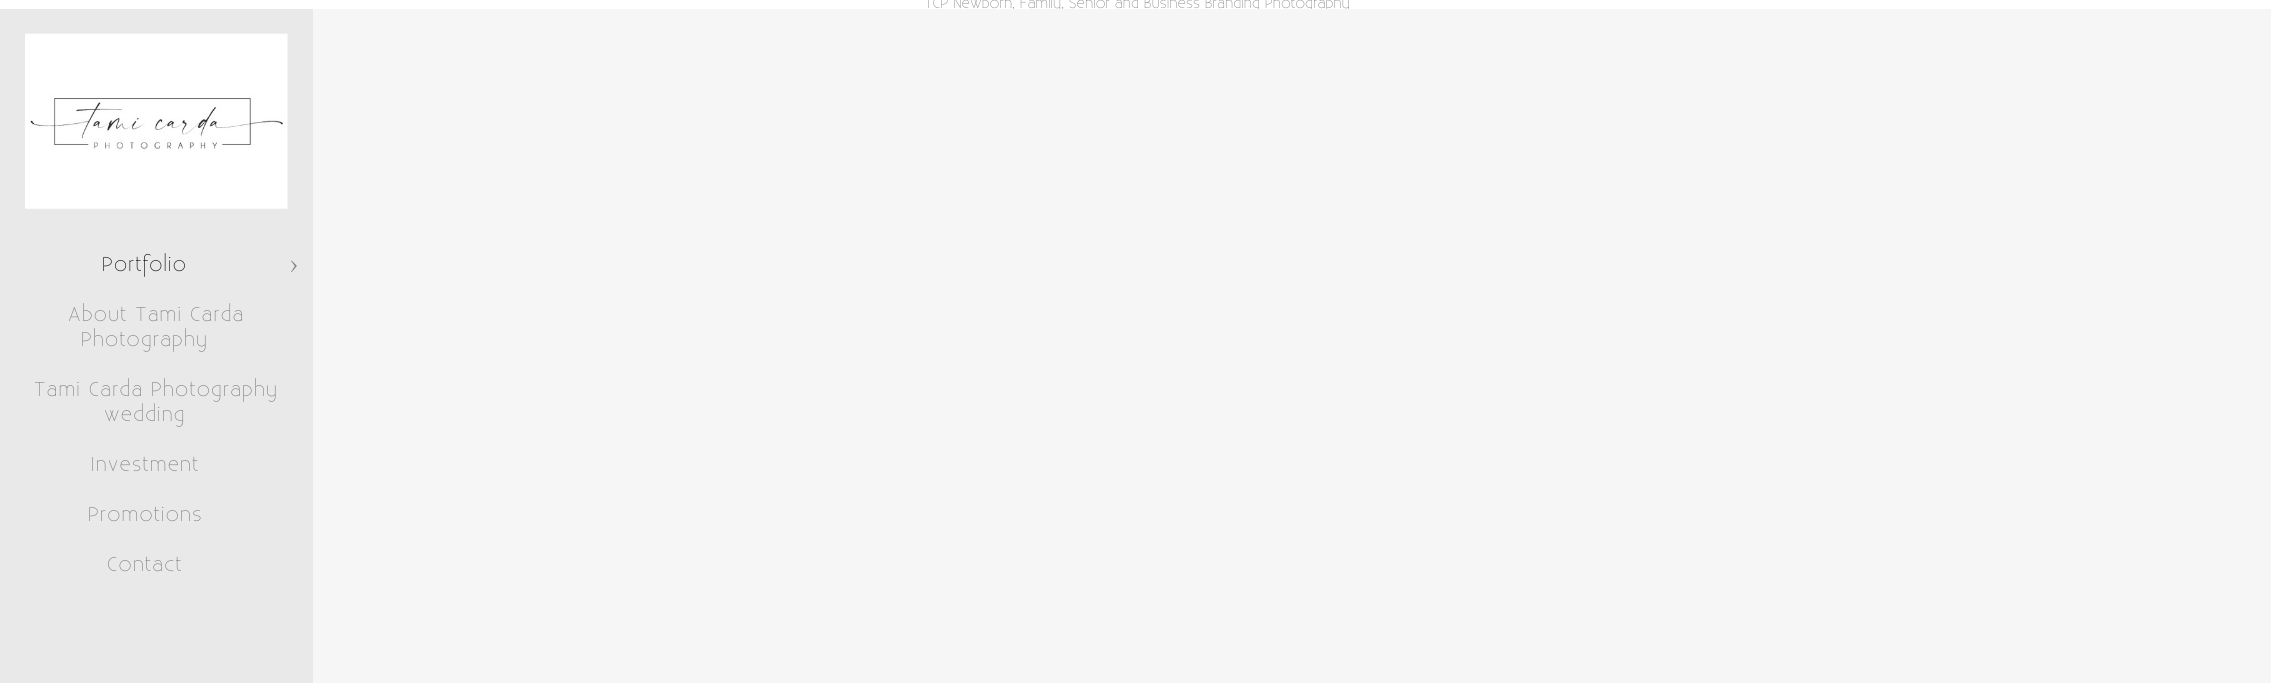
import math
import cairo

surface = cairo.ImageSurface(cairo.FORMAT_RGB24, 2271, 683)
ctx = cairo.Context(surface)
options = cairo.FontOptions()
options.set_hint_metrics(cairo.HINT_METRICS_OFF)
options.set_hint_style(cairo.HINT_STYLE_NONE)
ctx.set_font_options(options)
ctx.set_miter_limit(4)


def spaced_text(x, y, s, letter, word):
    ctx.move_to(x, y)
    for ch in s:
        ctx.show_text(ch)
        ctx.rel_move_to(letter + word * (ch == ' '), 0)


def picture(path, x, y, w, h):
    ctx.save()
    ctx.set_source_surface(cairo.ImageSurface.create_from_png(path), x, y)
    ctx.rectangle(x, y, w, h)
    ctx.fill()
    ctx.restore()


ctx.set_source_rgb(0.961, 0.961, 0.961)
ctx.paint()
ctx.set_source_rgb(1, 1, 1)
ctx.rectangle(0, 0, 2271, 9)
ctx.fill()
ctx.save()
ctx.rectangle(0, 0, 2271, 9)
ctx.clip()
ctx.select_font_face("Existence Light")
ctx.set_font_size(15)
ctx.set_source_rgb(0.502, 0.502, 0.502)
ctx.move_to(924, 8)
ctx.show_text("TCP Newborn, Family, Senior and Business Branding Photography")
ctx.restore()
ctx.set_source_rgb(0.914, 0.914, 0.914)
ctx.rectangle(0, 9, 313, 674)
ctx.fill()
picture("img1.png", 25, 33, 263, 176)
ctx.select_font_face("Existence Light")
ctx.set_font_size(20)
ctx.set_source_rgb(0, 0, 0)
spaced_text(102, 271, "Portfolio", 1.25, 0)
picture("img2.png", 291, 260, 6, 13)
ctx.set_source_rgb(0.502, 0.502, 0.502)
spaced_text(68, 321, "About Tami Carda", 1.25, 0)
spaced_text(81, 346, "Photography", 1.25, 0)
spaced_text(34, 396, "Tami Carda Photography", 1.25, 0)
spaced_text(104, 421, "wedding", 1.25, 0)
spaced_text(91, 471, "Investment", 1.25, 0)
spaced_text(88, 521, "Promotions", 1.25, 0)
spaced_text(107, 571, "Contact", 1.25, 0)
surface.write_to_png("page.png")
